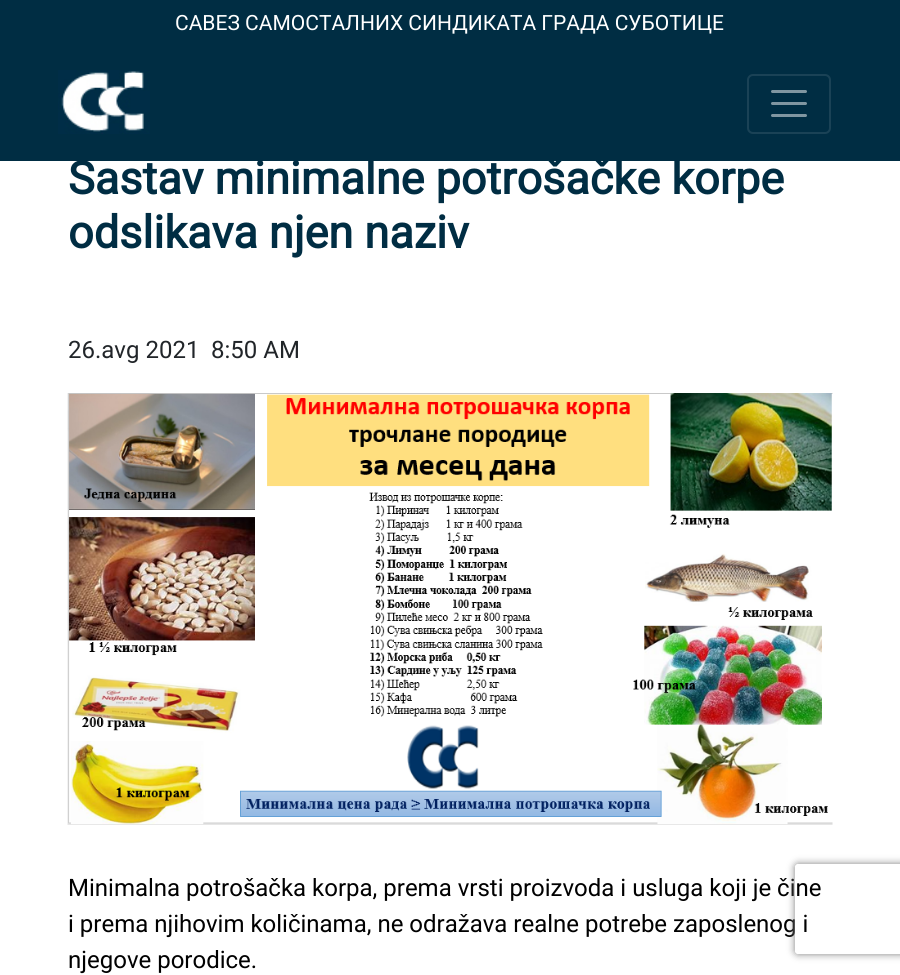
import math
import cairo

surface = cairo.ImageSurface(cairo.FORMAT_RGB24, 900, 975)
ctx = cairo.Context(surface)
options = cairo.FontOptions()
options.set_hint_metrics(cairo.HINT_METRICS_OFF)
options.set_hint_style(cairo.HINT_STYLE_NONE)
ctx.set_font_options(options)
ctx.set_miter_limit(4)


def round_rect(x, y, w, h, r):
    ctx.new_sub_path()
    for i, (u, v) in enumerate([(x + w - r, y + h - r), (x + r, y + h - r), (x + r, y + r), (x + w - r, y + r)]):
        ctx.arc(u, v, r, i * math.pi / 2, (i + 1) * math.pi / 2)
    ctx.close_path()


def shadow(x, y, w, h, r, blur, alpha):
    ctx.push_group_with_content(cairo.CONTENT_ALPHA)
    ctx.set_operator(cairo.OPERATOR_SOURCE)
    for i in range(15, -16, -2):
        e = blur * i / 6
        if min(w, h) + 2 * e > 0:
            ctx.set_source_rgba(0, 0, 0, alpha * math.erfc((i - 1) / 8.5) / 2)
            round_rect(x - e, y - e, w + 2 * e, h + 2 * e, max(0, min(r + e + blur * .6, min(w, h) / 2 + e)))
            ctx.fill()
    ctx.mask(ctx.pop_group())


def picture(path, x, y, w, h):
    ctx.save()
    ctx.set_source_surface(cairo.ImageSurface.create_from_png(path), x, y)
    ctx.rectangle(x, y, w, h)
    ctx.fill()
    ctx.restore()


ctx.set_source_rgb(1, 1, 1)
ctx.paint()
ctx.set_source_rgb(0, 0.176, 0.263)
ctx.rectangle(0, 0, 900, 161)
ctx.fill()
ctx.select_font_face("Roboto")
ctx.set_font_size(21)
ctx.set_source_rgb(1, 1, 1)
ctx.move_to(175, 30)
ctx.show_text("САВЕЗ САМОСТАЛНИХ СИНДИКАТА ГРАДА СУБОТИЦЕ")
picture("img1.png", 58, 70, 92, 64)
round_rect(748, 75, 82, 58, 5)
ctx.set_source_rgb(0.102, 0.259, 0.337)
ctx.stroke()
ctx.new_path()
ctx.move_to(772.5, 91.5)
ctx.line_to(805.5, 91.5)
ctx.move_to(772.5, 103.5)
ctx.line_to(805.5, 103.5)
ctx.move_to(772.5, 115.5)
ctx.line_to(805.5, 115.5)
ctx.set_source_rgb(0.502, 0.588, 0.631)
ctx.set_line_width(3)
ctx.set_line_cap(cairo.LINE_CAP_ROUND)
ctx.stroke()
ctx.select_font_face("Roboto", cairo.FONT_SLANT_NORMAL, cairo.FONT_WEIGHT_BOLD)
ctx.set_font_size(45)
ctx.set_source_rgb(0, 0.176, 0.263)
ctx.move_to(68, 194)
ctx.show_text("Sastav minimalne potrošačke korpe")
ctx.move_to(68, 248)
ctx.show_text("odslikava njen naziv")
ctx.select_font_face("Roboto")
ctx.set_font_size(24)
ctx.set_source_rgb(0.129, 0.145, 0.161)
ctx.move_to(68, 358)
ctx.show_text("26.avg 2021")
ctx.move_to(211, 358)
ctx.show_text("8:50 AM")
picture("img2.png", 67, 393, 766, 432)
ctx.set_source_rgb(0, 0, 0)
ctx.move_to(68, 896)
ctx.show_text("Minimalna potrošačka korpa, prema vrsti proizvoda i usluga koji je čine")
ctx.move_to(68, 932)
ctx.show_text("i prema njihovim količinama, ne odražava realne potrebe zaposlenog i")
ctx.move_to(68, 968)
ctx.show_text("njegove porodice.")
ctx.save()
ctx.set_fill_rule(cairo.FILL_RULE_EVEN_ODD)
ctx.new_path()
ctx.move_to(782, 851)
ctx.line_to(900, 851)
ctx.line_to(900, 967)
ctx.line_to(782, 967)
ctx.close_path()
ctx.move_to(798, 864)
ctx.line_to(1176, 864)
ctx.curve_to(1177.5, 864, 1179, 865.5, 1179, 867)
ctx.line_to(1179, 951)
ctx.curve_to(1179, 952.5, 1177.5, 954, 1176, 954)
ctx.line_to(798, 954)
ctx.curve_to(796.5, 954, 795, 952.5, 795, 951)
ctx.line_to(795, 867)
ctx.curve_to(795, 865.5, 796.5, 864, 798, 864)
ctx.close_path()
ctx.clip()
ctx.set_source_rgb(0.502, 0.502, 0.502)
shadow(795, 864, 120, 90, 3, 4, 1)
ctx.restore()
surface.write_to_png("page.png")
